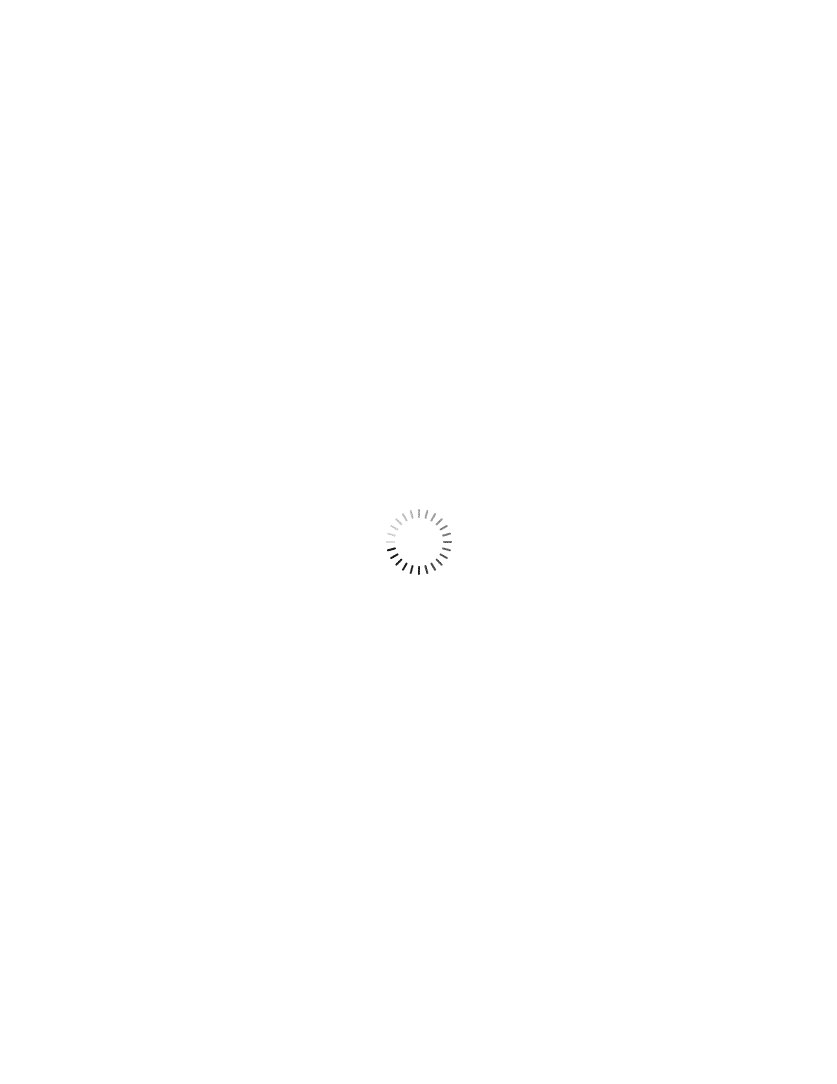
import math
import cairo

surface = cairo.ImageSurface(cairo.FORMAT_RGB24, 837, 1084)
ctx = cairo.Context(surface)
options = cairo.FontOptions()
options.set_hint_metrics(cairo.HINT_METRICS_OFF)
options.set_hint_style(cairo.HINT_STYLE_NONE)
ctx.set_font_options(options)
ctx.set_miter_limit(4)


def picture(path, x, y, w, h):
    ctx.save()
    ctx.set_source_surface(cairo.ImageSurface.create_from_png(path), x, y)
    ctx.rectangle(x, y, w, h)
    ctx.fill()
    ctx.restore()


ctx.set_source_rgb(1, 1, 1)
ctx.paint()
picture("img1.png", 386, 509, 66, 66)
surface.write_to_png("page.png")
